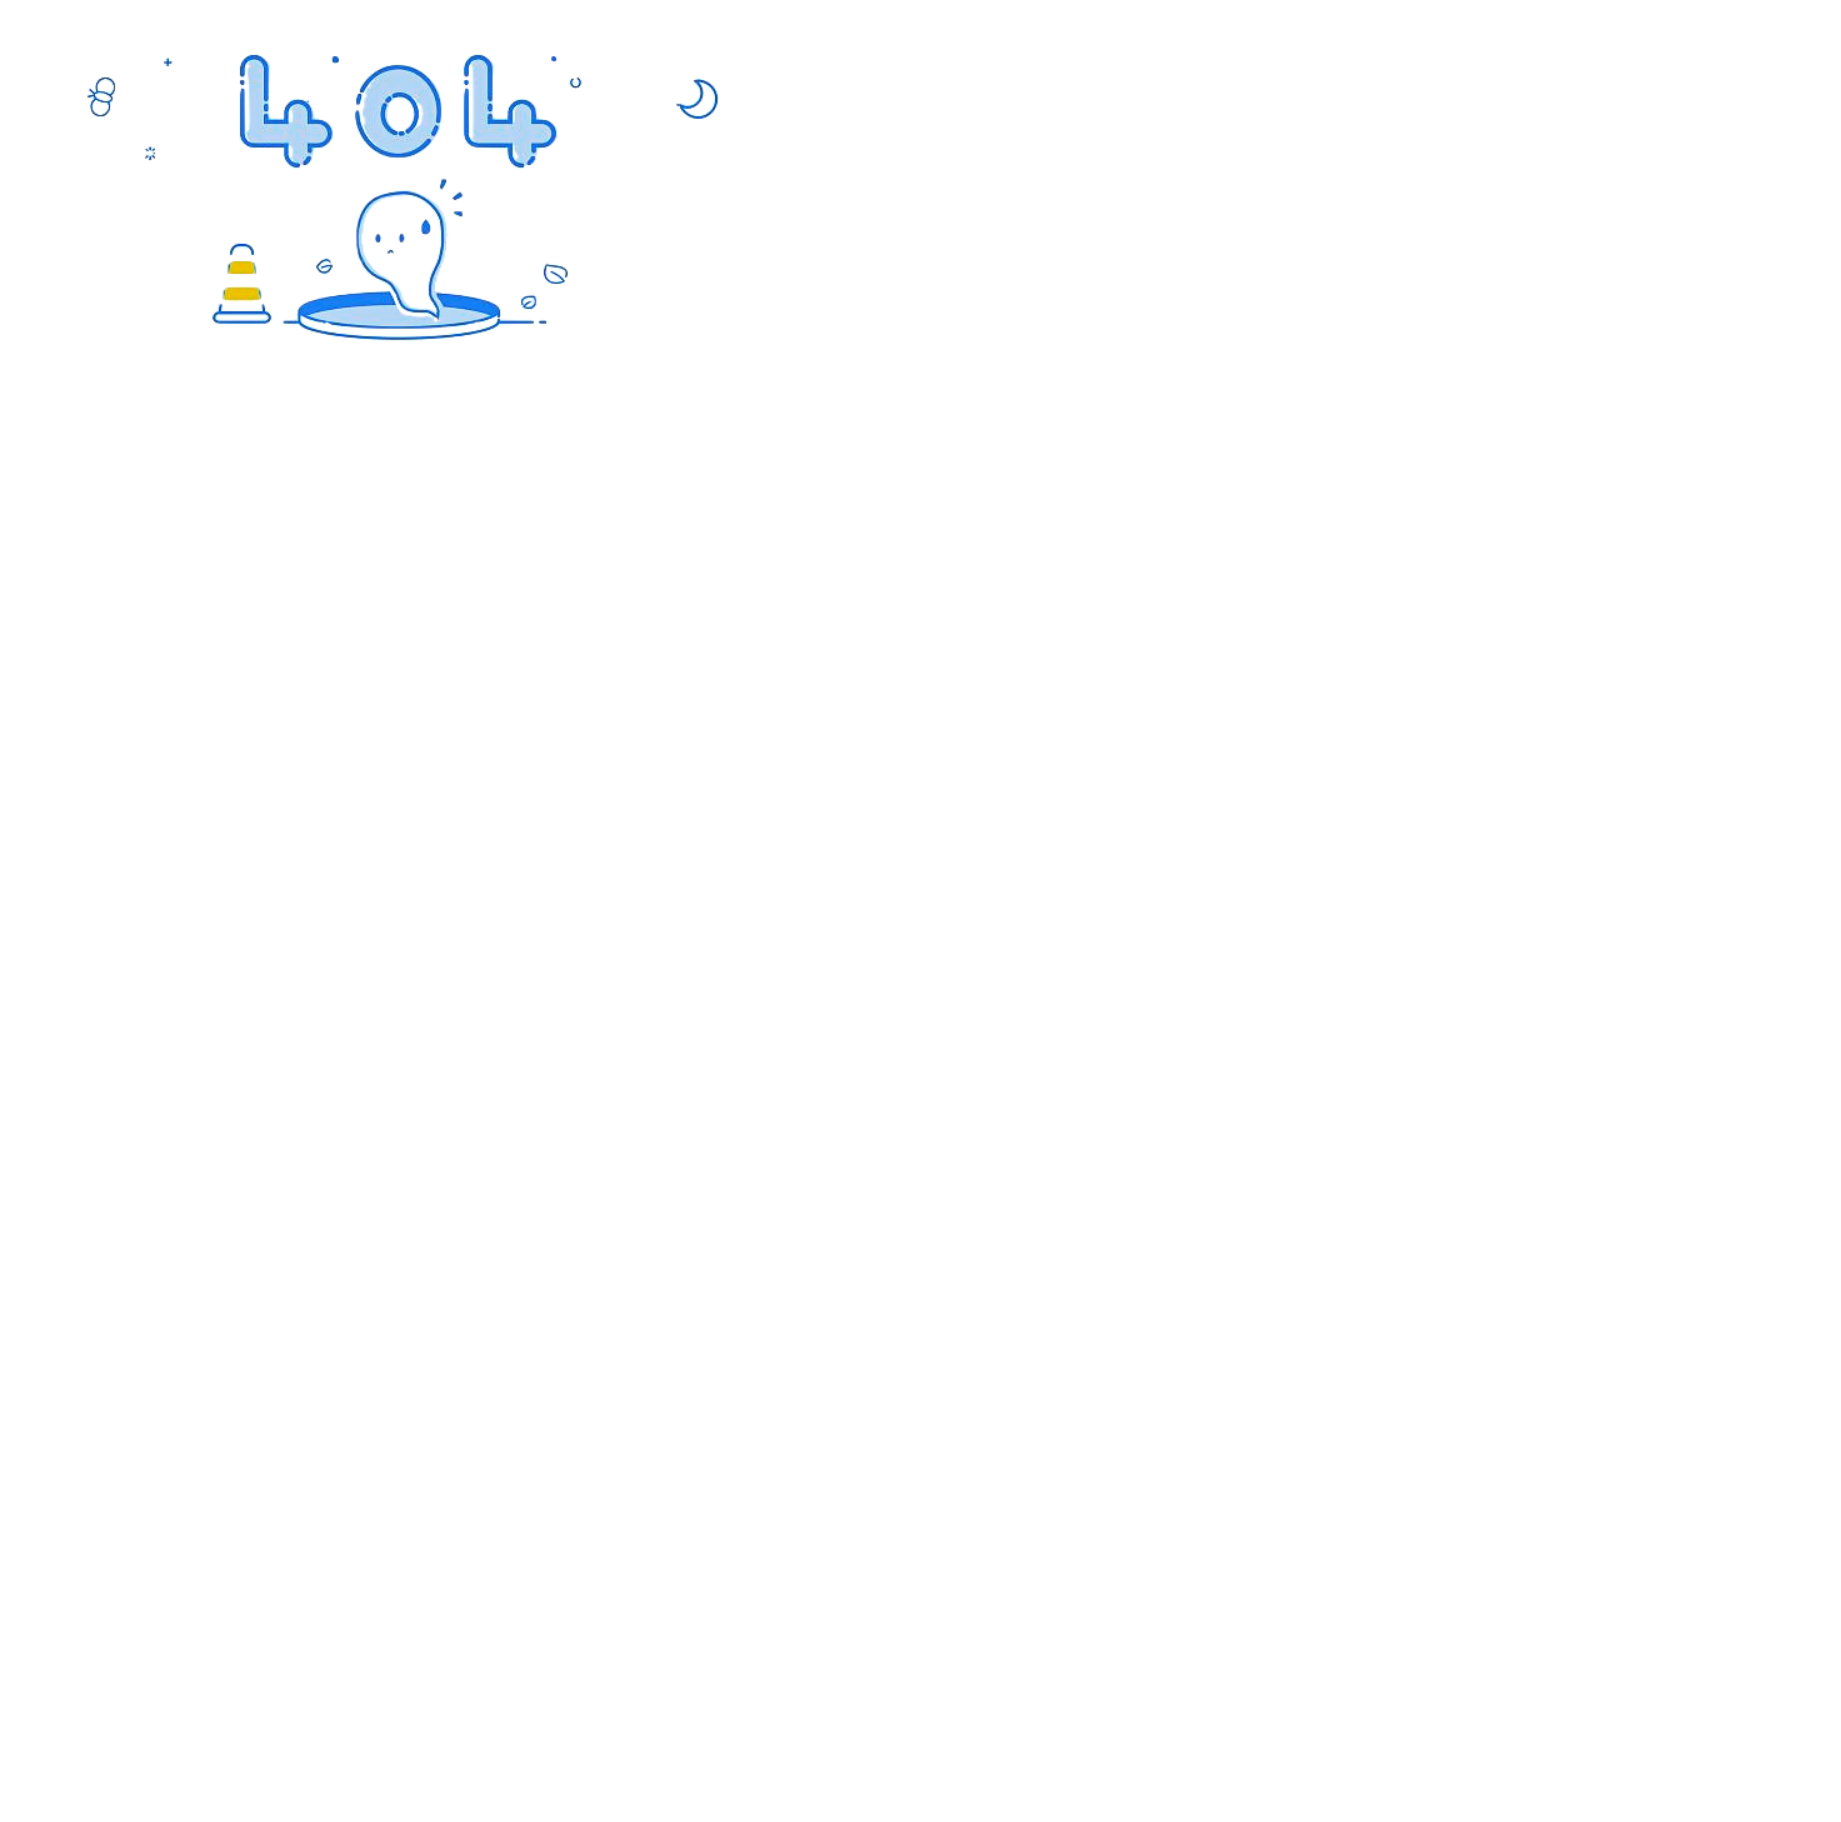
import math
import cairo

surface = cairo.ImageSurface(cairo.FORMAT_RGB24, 1841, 1822)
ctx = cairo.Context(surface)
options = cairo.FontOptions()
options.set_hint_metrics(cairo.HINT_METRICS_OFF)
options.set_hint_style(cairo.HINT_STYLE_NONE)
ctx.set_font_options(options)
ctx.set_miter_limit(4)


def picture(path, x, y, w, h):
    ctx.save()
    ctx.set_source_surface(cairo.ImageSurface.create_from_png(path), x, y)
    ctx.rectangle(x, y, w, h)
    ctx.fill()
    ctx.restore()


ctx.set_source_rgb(1, 1, 1)
ctx.paint()
picture("img1.png", 87, 53, 632, 288)
surface.write_to_png("page.png")
